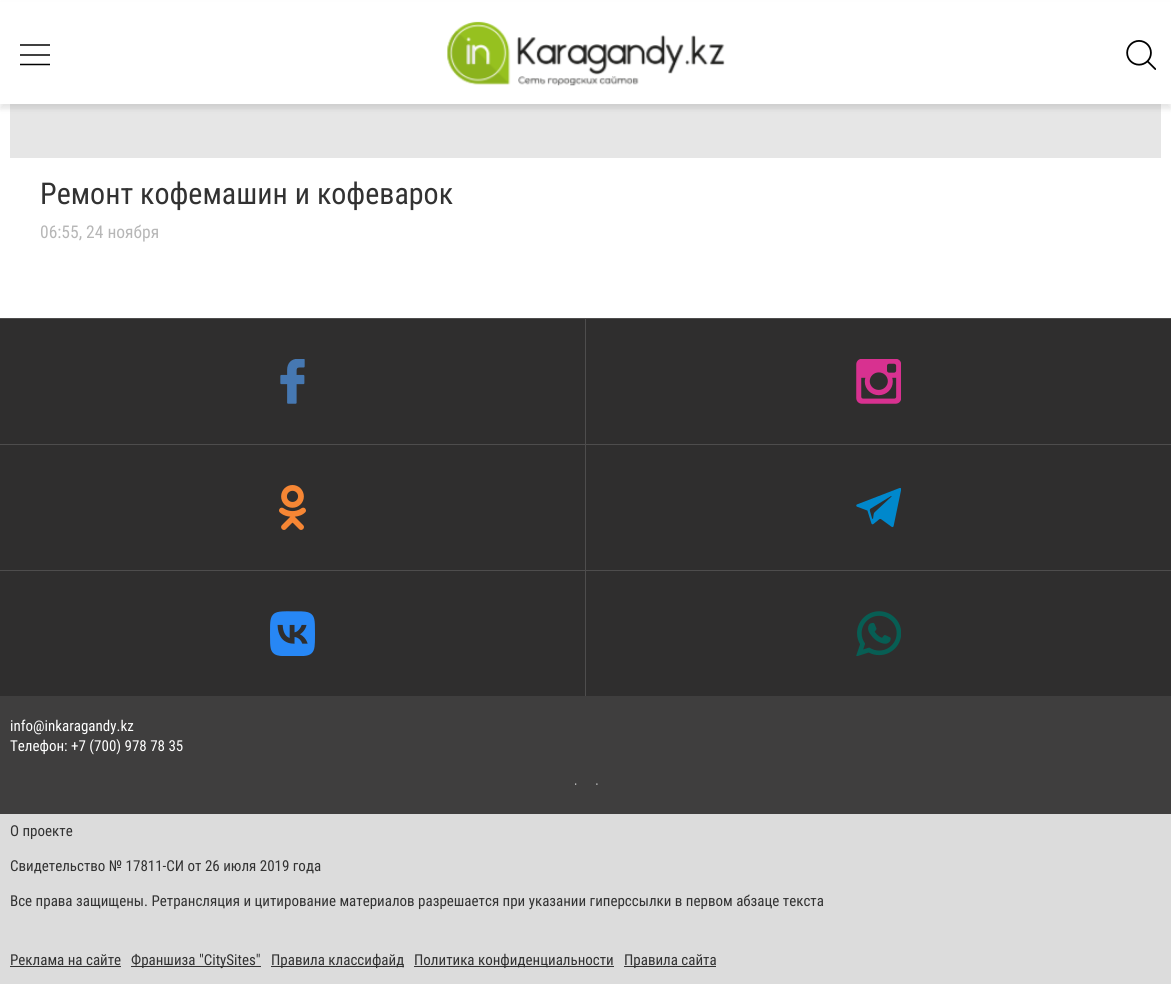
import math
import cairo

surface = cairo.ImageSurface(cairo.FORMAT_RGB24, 1171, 984)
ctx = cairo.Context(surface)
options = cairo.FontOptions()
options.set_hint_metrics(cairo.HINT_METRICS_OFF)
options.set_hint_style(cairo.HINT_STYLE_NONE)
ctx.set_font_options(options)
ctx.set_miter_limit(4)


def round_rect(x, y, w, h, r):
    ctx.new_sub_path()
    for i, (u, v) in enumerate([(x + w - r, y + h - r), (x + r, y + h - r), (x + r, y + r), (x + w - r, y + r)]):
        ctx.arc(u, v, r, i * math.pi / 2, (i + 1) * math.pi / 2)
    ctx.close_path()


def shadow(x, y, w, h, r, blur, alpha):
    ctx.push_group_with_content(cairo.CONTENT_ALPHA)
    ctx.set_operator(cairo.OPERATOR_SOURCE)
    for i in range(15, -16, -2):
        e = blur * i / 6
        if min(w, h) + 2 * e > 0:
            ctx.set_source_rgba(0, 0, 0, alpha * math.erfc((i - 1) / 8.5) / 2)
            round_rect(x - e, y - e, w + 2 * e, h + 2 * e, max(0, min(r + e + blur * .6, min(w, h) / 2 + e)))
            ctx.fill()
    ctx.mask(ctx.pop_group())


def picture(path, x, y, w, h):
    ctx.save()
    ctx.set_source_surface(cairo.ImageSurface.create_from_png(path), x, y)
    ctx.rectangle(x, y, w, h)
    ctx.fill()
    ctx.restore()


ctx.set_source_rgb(1, 1, 1)
ctx.paint()
ctx.set_source_rgb(0.902, 0.902, 0.902)
ctx.rectangle(10, 104, 1151, 54)
ctx.fill()
ctx.set_source_rgb(0, 0, 0)
shadow(0, 5, 1171, 104, 0, 2.5, 0.1)
ctx.set_source_rgb(1, 1, 1)
ctx.rectangle(0, 2, 1171, 102)
ctx.fill()
ctx.set_source_rgb(0.251, 0.251, 0.251)
ctx.rectangle(20, 44, 30, 2)
ctx.fill()
ctx.rectangle(20, 54, 30, 2)
ctx.fill()
ctx.new_path()
ctx.move_to(20, 64.5)
ctx.line_to(50, 64.5)
ctx.set_source_rgb(0, 0, 0)
ctx.set_line_width(1.5)
ctx.stroke()
picture("img1.png", 447, 21, 278, 65)
picture("img2.png", 1126, 40, 30, 30)
ctx.select_font_face("Roboto Condensed")
ctx.set_font_size(30)
ctx.set_source_rgb(0.196, 0.196, 0.196)
ctx.move_to(40, 204)
ctx.show_text("Ремонт кофемашин и кофеварок")
ctx.set_font_size(17.5)
ctx.set_source_rgb(0.718, 0.718, 0.718)
ctx.move_to(40, 238)
ctx.show_text("06:55, 24 ноября")
ctx.set_source_rgb(0.247, 0.243, 0.243)
ctx.rectangle(0, 696, 1171, 118)
ctx.fill()
ctx.set_source_rgb(0.184, 0.18, 0.18)
ctx.rectangle(0, 318, 1171, 378)
ctx.fill()
ctx.set_source_rgb(0.306, 0.302, 0.302)
ctx.new_path()
ctx.move_to(0, 318)
ctx.line_to(586, 318)
ctx.line_to(585, 319)
ctx.line_to(0, 319)
ctx.close_path()
ctx.fill()
ctx.set_source_rgba(1, 1, 1, 0.15)
ctx.new_path()
ctx.move_to(586, 318)
ctx.line_to(586, 444)
ctx.line_to(585, 444)
ctx.line_to(585, 319)
ctx.close_path()
ctx.fill()
picture("img3.png", 280, 359, 25, 45)
ctx.set_source_rgb(0.306, 0.302, 0.302)
ctx.rectangle(586, 318, 585, 1)
ctx.fill()
picture("img4.png", 856, 359, 45, 45)
ctx.new_path()
ctx.move_to(0, 444)
ctx.line_to(586, 444)
ctx.line_to(585, 445)
ctx.line_to(0, 445)
ctx.close_path()
ctx.fill()
ctx.set_source_rgba(1, 1, 1, 0.15)
ctx.new_path()
ctx.move_to(586, 444)
ctx.line_to(586, 570)
ctx.line_to(585, 570)
ctx.line_to(585, 445)
ctx.close_path()
ctx.fill()
picture("img5.png", 279, 485, 27, 45)
ctx.set_source_rgb(0.306, 0.302, 0.302)
ctx.rectangle(586, 444, 585, 1)
ctx.fill()
picture("img6.png", 856, 488, 45, 40)
ctx.new_path()
ctx.move_to(0, 570)
ctx.line_to(586, 570)
ctx.line_to(585, 571)
ctx.line_to(0, 571)
ctx.close_path()
ctx.fill()
ctx.set_source_rgba(1, 1, 1, 0.15)
ctx.new_path()
ctx.move_to(586, 570)
ctx.line_to(586, 696)
ctx.line_to(585, 696)
ctx.line_to(585, 571)
ctx.close_path()
ctx.fill()
picture("img7.png", 270, 611, 45, 45)
ctx.set_source_rgb(0.306, 0.302, 0.302)
ctx.rectangle(586, 570, 585, 1)
ctx.fill()
picture("img8.png", 856, 611, 45, 45)
ctx.set_font_size(15)
ctx.set_source_rgb(1, 1, 1)
ctx.move_to(10, 731)
ctx.show_text("info@inkaragandy.kz")
ctx.move_to(10, 751)
ctx.show_text("Телефон: +7 (700) 978 78 35")
picture("img9.png", 575, 783, 2, 2)
picture("img10.png", 596, 783, 2, 2)
ctx.set_source_rgb(0.863, 0.863, 0.863)
ctx.rectangle(0, 814, 1171, 170)
ctx.fill()
ctx.set_source_rgb(0.196, 0.196, 0.196)
ctx.move_to(10, 836)
ctx.show_text("О проекте")
ctx.move_to(10, 871)
ctx.show_text("Свидетельство № 17811-СИ от 26 июля 2019 года")
ctx.move_to(10, 906)
ctx.show_text("Все права защищены. Ретрансляция и цитирование материалов разрешается при указании гиперссылки в первом абзаце текста")
ctx.move_to(10, 965)
ctx.show_text("Реклама на сайте")
ctx.rectangle(10, 966, 111, 1)
ctx.fill()
ctx.rectangle(131, 966, 130, 1)
ctx.fill()
ctx.move_to(131, 965)
ctx.show_text("Франшиза \"CitySites\"")
ctx.rectangle(271, 966, 133, 1)
ctx.fill()
ctx.move_to(271, 965)
ctx.show_text("Правила классифайд")
ctx.rectangle(414, 966, 200, 1)
ctx.fill()
ctx.move_to(414, 965)
ctx.show_text("Политика конфиденциальности")
ctx.rectangle(624, 966, 92, 1)
ctx.fill()
ctx.move_to(624, 965)
ctx.show_text("Правила сайта")
surface.write_to_png("page.png")
